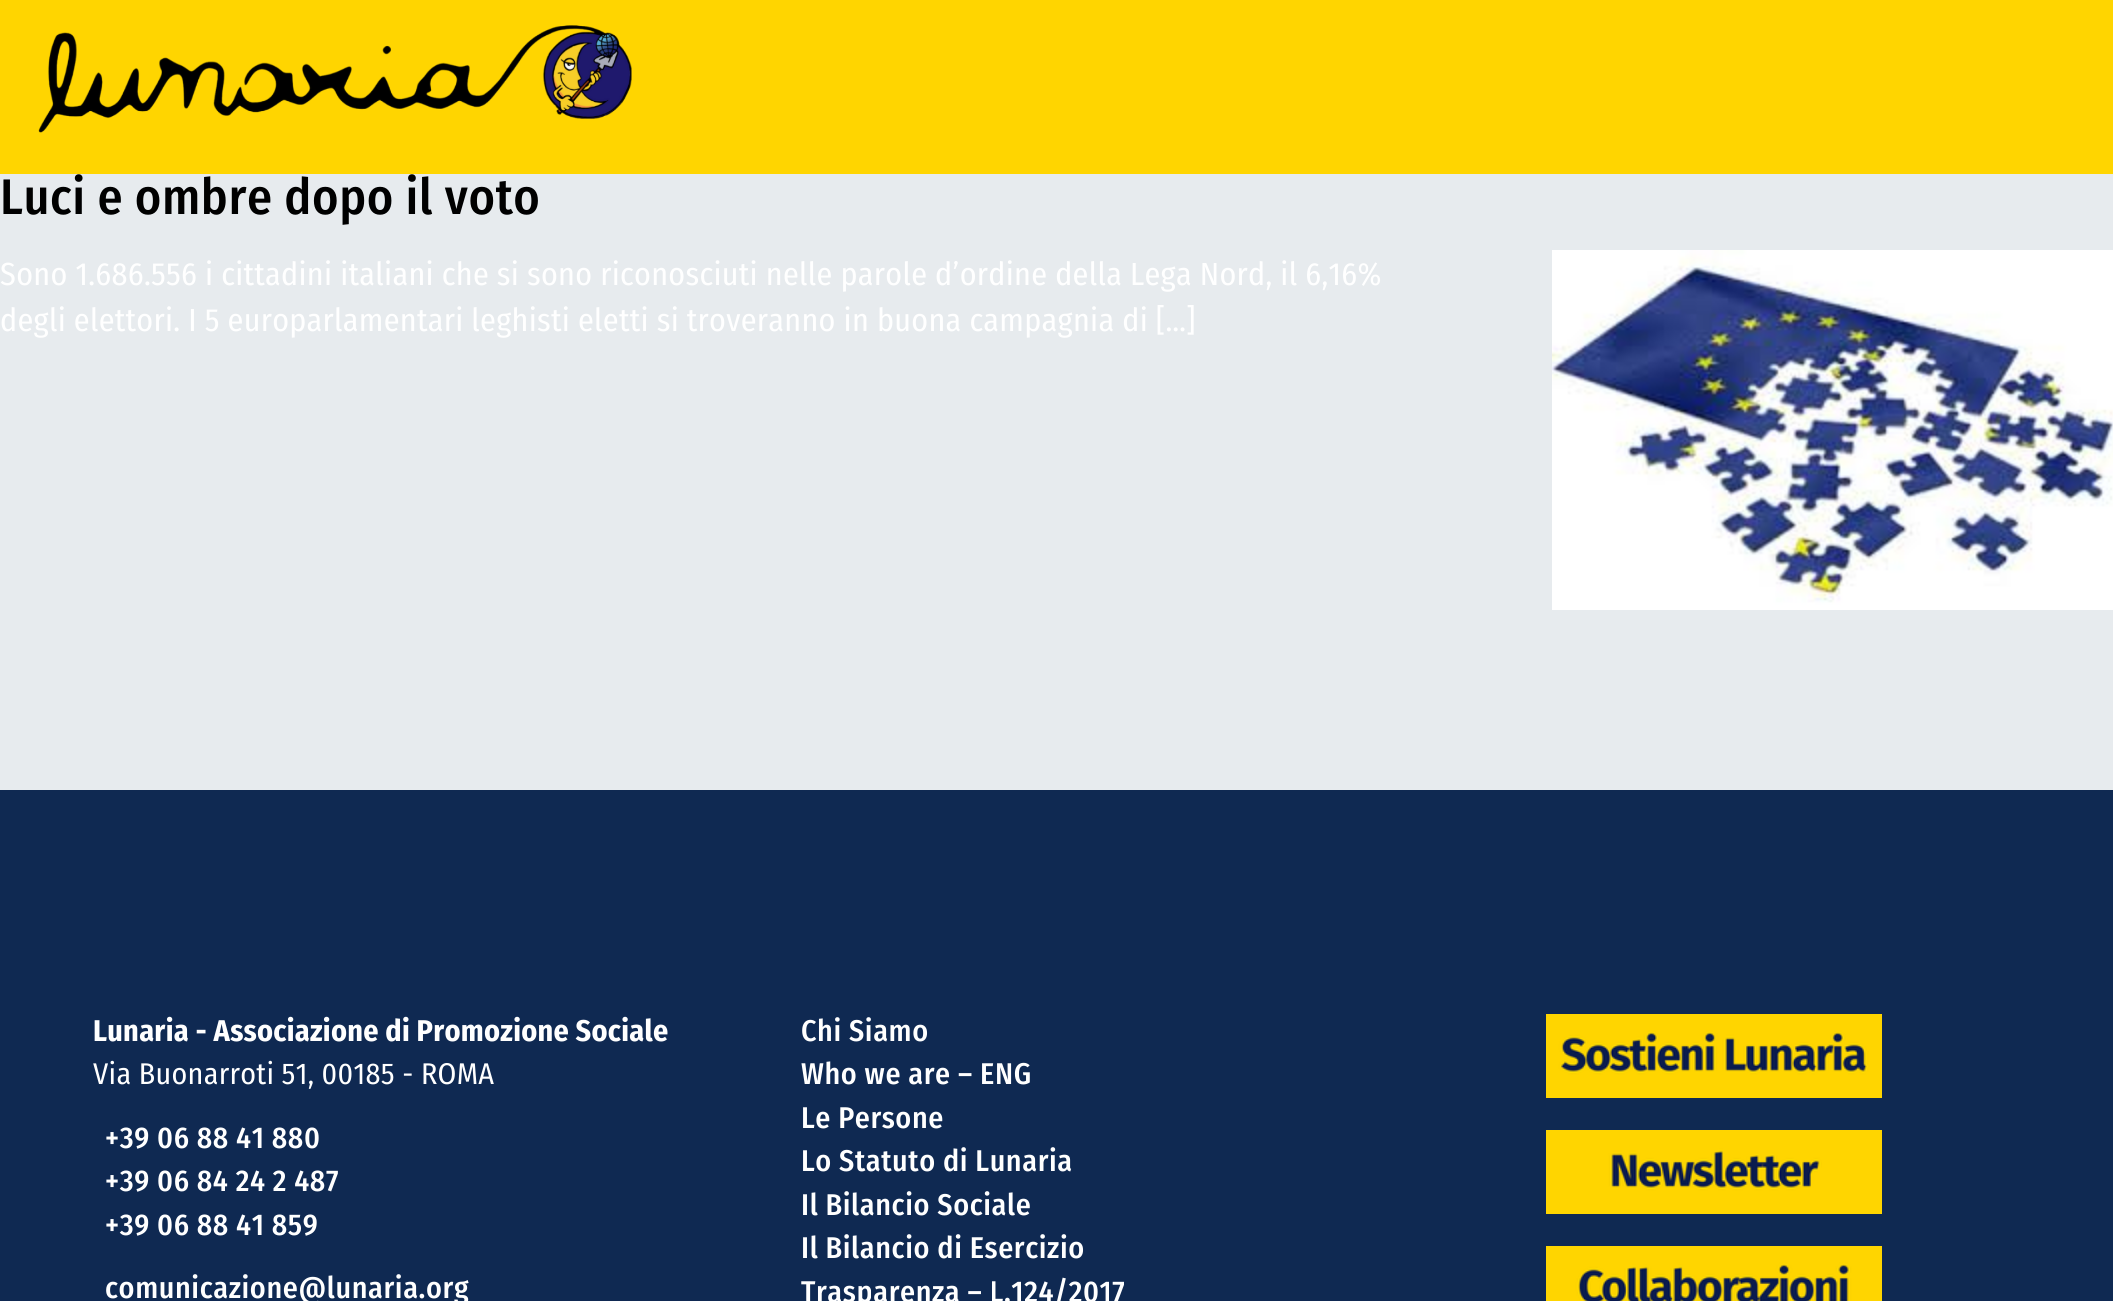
import math
import cairo

surface = cairo.ImageSurface(cairo.FORMAT_RGB24, 2113, 1301)
ctx = cairo.Context(surface)
options = cairo.FontOptions()
options.set_hint_metrics(cairo.HINT_METRICS_OFF)
options.set_hint_style(cairo.HINT_STYLE_NONE)
ctx.set_font_options(options)
ctx.set_miter_limit(4)


def spaced_text(x, y, s, letter, word):
    ctx.move_to(x, y)
    for ch in s:
        ctx.show_text(ch)
        ctx.rel_move_to(letter + word * (ch == ' '), 0)


def picture(path, x, y, w, h):
    ctx.save()
    ctx.set_source_surface(cairo.ImageSurface.create_from_png(path), x, y)
    ctx.rectangle(x, y, w, h)
    ctx.fill()
    ctx.restore()


ctx.set_source_rgb(0.059, 0.161, 0.322)
ctx.paint()
ctx.set_source_rgb(1, 0.835, 0)
ctx.rectangle(0, 0, 2113, 174)
ctx.fill()
picture("img1.png", 38, 25, 594, 108)
ctx.set_source_rgb(0.906, 0.918, 0.933)
ctx.rectangle(0, 174, 2113, 616)
ctx.fill()
ctx.select_font_face("Fira Sans Condensed Medium")
ctx.set_font_size(50)
ctx.set_source_rgb(0, 0, 0)
spaced_text(0, 214, "Luci e ombre dopo il voto", 0.6, 0)
ctx.select_font_face("Fira Sans Condensed")
ctx.set_font_size(32)
ctx.set_source_rgb(1, 1, 1)
spaced_text(0, 285, "Sono 1.686.556 i cittadini italiani che si sono riconosciuti nelle parole d’ordine della Lega Nord, il 6,16%", 0.3, 0)
spaced_text(0, 331, "degli elettori. I 5 europarlamentari leghisti eletti si troveranno in buona campagnia di […]", 0.3, 0)
picture("img2.png", 1552, 250, 561, 360)
ctx.select_font_face("Fira Sans Condensed", cairo.FONT_SLANT_NORMAL, cairo.FONT_WEIGHT_BOLD)
ctx.set_font_size(30)
spaced_text(93, 1041, "Lunaria - Associazione di Promozione Sociale", 0.3, 0)
ctx.select_font_face("Fira Sans Condensed")
spaced_text(93, 1084, "Via Buonarroti 51, 00185 - ROMA", 0.3, 0)
ctx.select_font_face("Fira Sans Condensed Medium")
spaced_text(105, 1148, "+39 06 88 41 880", 0.6, 0)
spaced_text(105, 1191, "+39 06 84 24 2 487", 0.6, 0)
spaced_text(105, 1235, "+39 06 88 41 859", 0.6, 0)
spaced_text(105, 1298, "comunicazione@lunaria.org", 0.6, 0)
spaced_text(801, 1041, "Chi Siamo", 0.6, 0)
spaced_text(801, 1084, "Who we are – ENG", 0.6, 0)
spaced_text(801, 1128, "Le Persone", 0.6, 0)
spaced_text(801, 1171, "Lo Statuto di Lunaria", 0.6, 0)
spaced_text(801, 1215, "Il Bilancio Sociale", 0.6, 0)
spaced_text(801, 1258, "Il Bilancio di Esercizio", 0.6, 0)
spaced_text(801, 1302, "Trasparenza – L.124/2017", 0.6, 0)
picture("img3.png", 1546, 1014, 336, 84)
picture("img4.png", 1546, 1130, 336, 84)
picture("img5.png", 1546, 1246, 336, 55)
surface.write_to_png("page.png")
